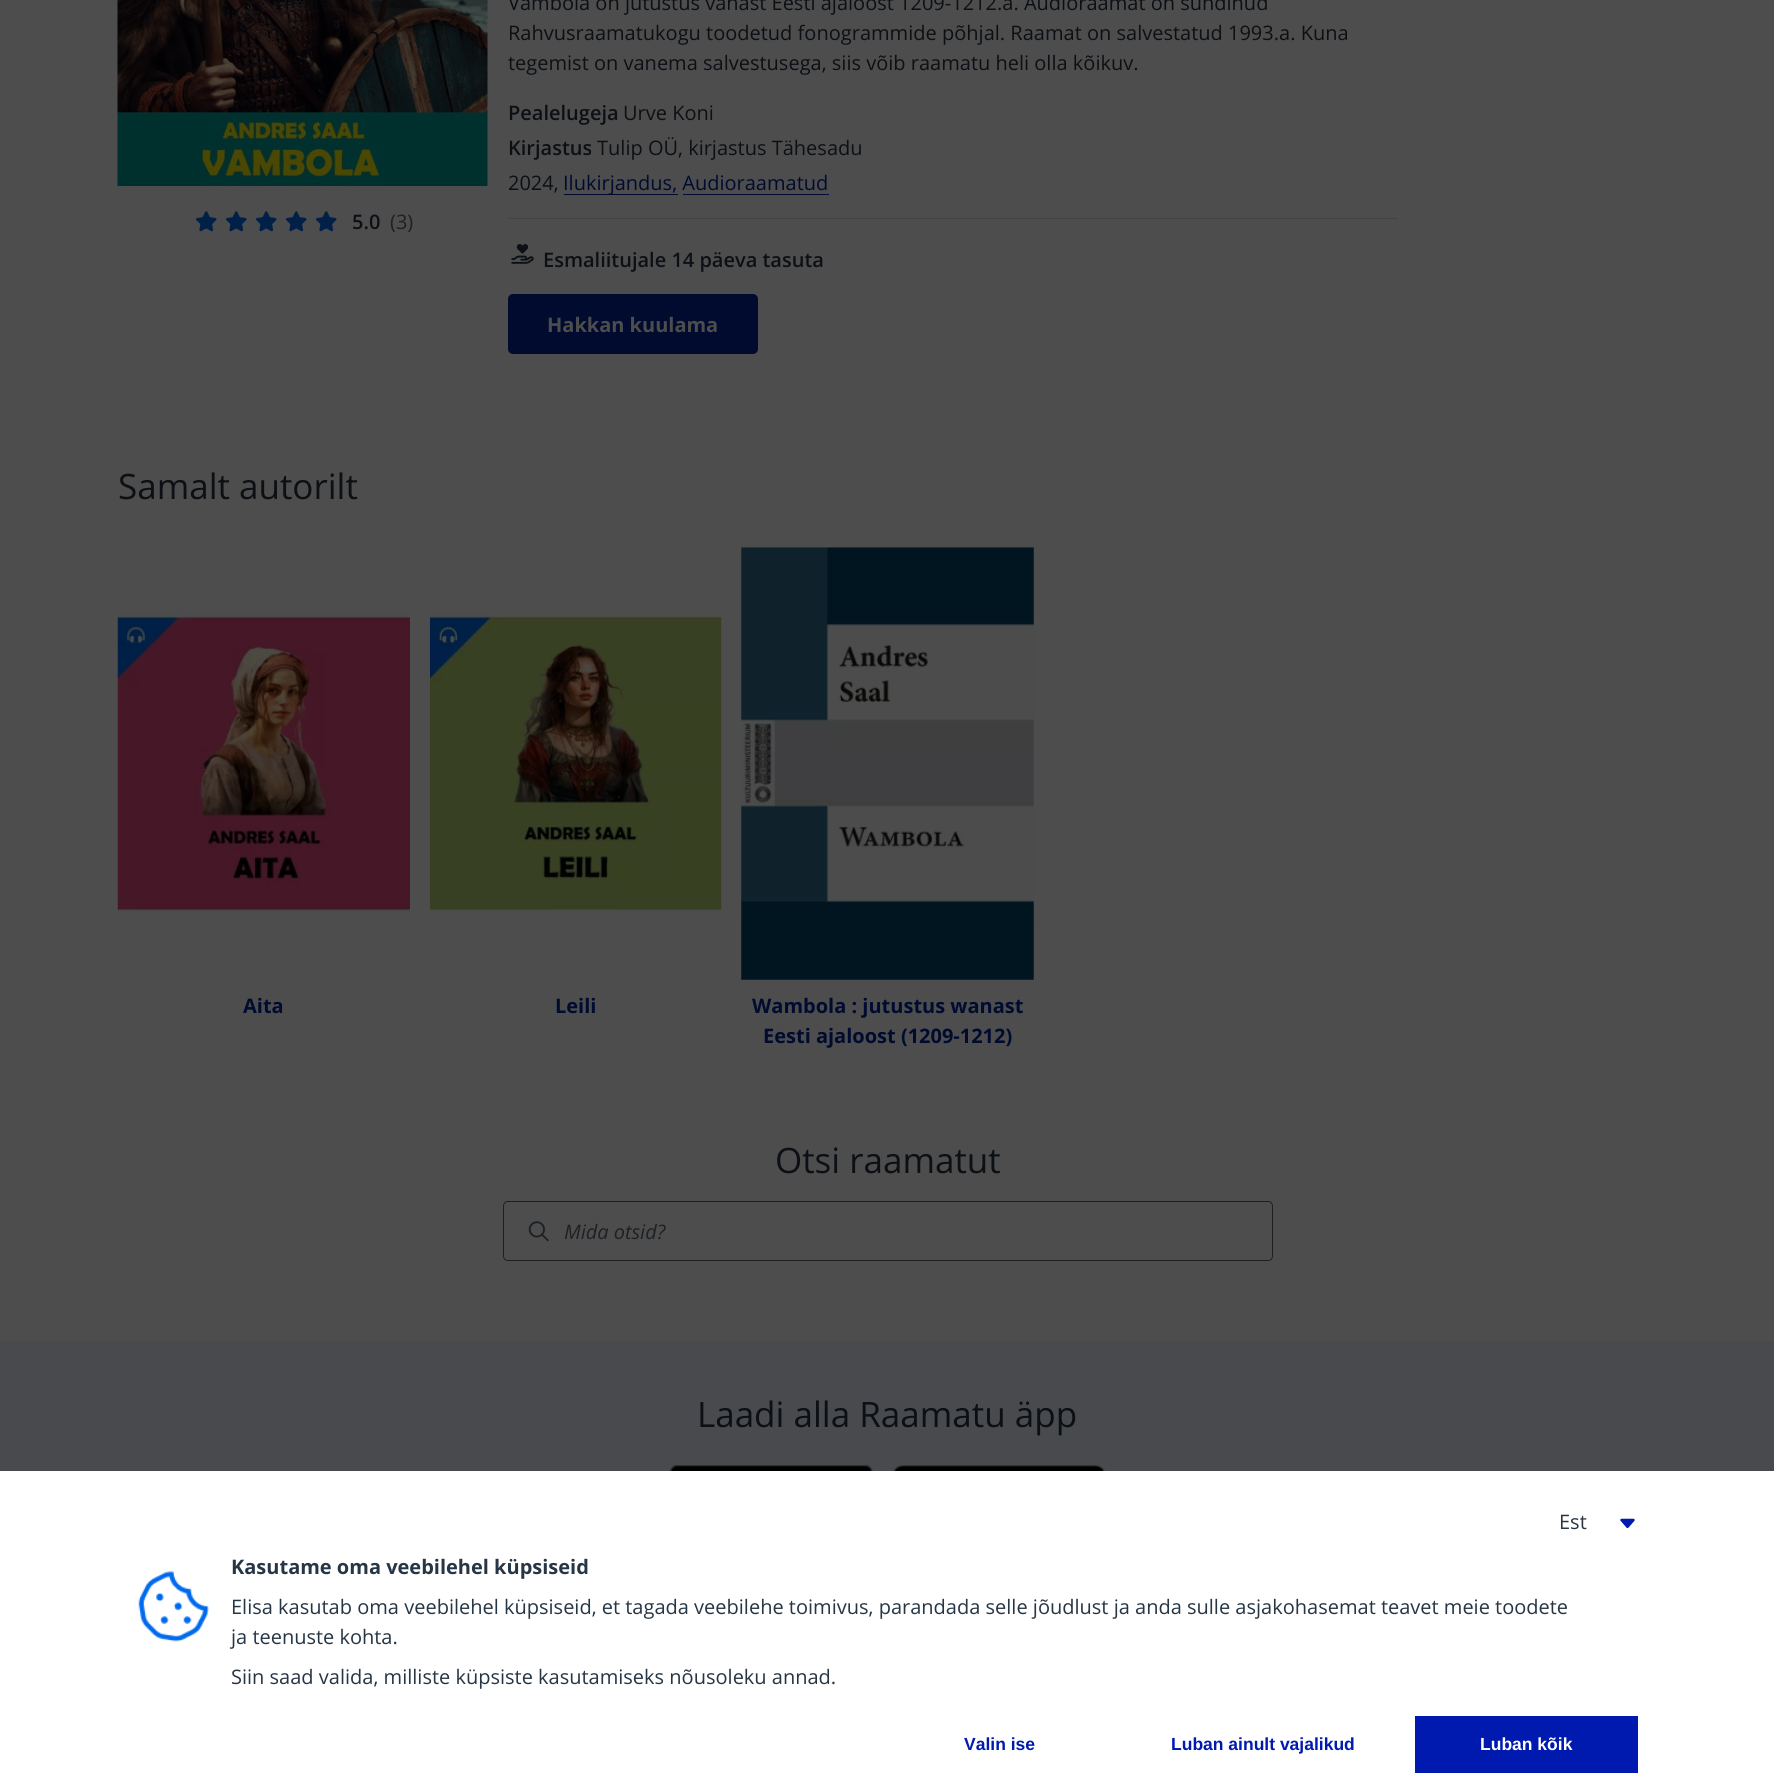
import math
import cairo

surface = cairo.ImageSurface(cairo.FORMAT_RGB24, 1774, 1792)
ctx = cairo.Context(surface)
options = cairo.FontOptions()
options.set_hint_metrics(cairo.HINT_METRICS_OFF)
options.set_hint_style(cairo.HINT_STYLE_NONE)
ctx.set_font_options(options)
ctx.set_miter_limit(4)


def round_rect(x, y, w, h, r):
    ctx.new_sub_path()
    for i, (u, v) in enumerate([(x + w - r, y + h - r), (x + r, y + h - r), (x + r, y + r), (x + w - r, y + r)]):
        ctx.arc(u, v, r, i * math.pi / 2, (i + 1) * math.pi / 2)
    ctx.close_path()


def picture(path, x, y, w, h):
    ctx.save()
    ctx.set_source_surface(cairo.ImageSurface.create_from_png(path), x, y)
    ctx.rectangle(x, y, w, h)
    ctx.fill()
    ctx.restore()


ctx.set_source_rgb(0.302, 0.302, 0.302)
ctx.paint()
picture("img1.png", 117, 0, 371, 186)
picture("img2.png", 196, 211, 21, 21)
picture("img2.png", 226, 211, 21, 21)
picture("img2.png", 256, 211, 21, 21)
picture("img2.png", 286, 211, 21, 21)
picture("img2.png", 316, 211, 21, 21)
ctx.select_font_face("Open Sans SemiBold")
ctx.set_font_size(20)
ctx.set_source_rgb(0.047, 0.063, 0.082)
ctx.move_to(352, 229)
ctx.show_text("5.0")
ctx.select_font_face("Open Sans")
ctx.set_source_rgb(0.114, 0.129, 0.145)
ctx.move_to(390, 229)
ctx.show_text("(3)")
ctx.set_source_rgb(0.047, 0.063, 0.082)
ctx.move_to(508, 10)
ctx.show_text("Vambola on jutustus vanast Eesti ajaloost 1209-1212.a. Audioraamat on sündinud")
ctx.move_to(508, 40)
ctx.show_text("Rahvusraamatukogu toodetud fonogrammide põhjal. Raamat on salvestatud 1993.a. Kuna")
ctx.move_to(508, 70)
ctx.show_text("tegemist on vanema salvestusega, siis võib raamatu heli olla kõikuv.")
ctx.select_font_face("Open Sans SemiBold")
ctx.move_to(508, 120)
ctx.show_text("Pealelugeja")
ctx.select_font_face("Open Sans")
ctx.move_to(623, 120)
ctx.show_text("Urve Koni")
ctx.move_to(597, 155)
ctx.show_text("Tulip OÜ, kirjastus Tähesadu")
ctx.move_to(508, 190)
ctx.show_text("2024,")
ctx.set_source_rgb(0, 0.043, 0.184)
ctx.rectangle(564, 194, 114, 1)
ctx.fill()
ctx.move_to(563, 190)
ctx.show_text("Ilukirjandus, Audioraamatud")
ctx.rectangle(683, 194, 146, 1)
ctx.fill()
ctx.select_font_face("Open Sans SemiBold")
ctx.set_source_rgb(0.047, 0.063, 0.082)
ctx.move_to(508, 155)
ctx.show_text("Kirjastus")
ctx.set_source_rgb(0.263, 0.263, 0.271)
ctx.rectangle(508, 218, 890, 1)
ctx.fill()
picture("img3.png", 511, 244, 23, 20)
ctx.set_source_rgb(0.047, 0.063, 0.082)
ctx.move_to(543, 267)
ctx.show_text("Esmaliitujale 14 päeva tasuta")
ctx.set_source_rgb(0, 0.043, 0.184)
round_rect(508, 294, 250, 60, 5)
ctx.fill()
ctx.select_font_face("Open Sans", cairo.FONT_SLANT_NORMAL, cairo.FONT_WEIGHT_BOLD)
ctx.set_source_rgb(0.302, 0.302, 0.302)
ctx.move_to(547, 332)
ctx.show_text("Hakkan kuulama")
ctx.select_font_face("Open Sans")
ctx.set_font_size(35)
ctx.set_source_rgb(0.047, 0.063, 0.082)
ctx.move_to(118, 499)
ctx.show_text("Samalt autorilt")
picture("img4.png", 117, 615, 293, 297)
ctx.select_font_face("Open Sans", cairo.FONT_SLANT_NORMAL, cairo.FONT_WEIGHT_BOLD)
ctx.set_font_size(20)
ctx.set_source_rgb(0, 0.043, 0.184)
ctx.move_to(243, 1013)
ctx.show_text("Aita")
picture("img5.png", 430, 615, 292, 297)
ctx.move_to(555, 1013)
ctx.show_text("Leili")
picture("img6.png", 741, 547, 293, 433)
ctx.move_to(752, 1013)
ctx.show_text("Wambola : jutustus wanast")
ctx.move_to(763, 1043)
ctx.show_text("Eesti ajaloost (1209-1212)")
ctx.select_font_face("Open Sans")
ctx.set_font_size(35)
ctx.set_source_rgb(0.047, 0.063, 0.082)
ctx.move_to(775, 1173)
ctx.show_text("Otsi raamatut")
round_rect(503.5, 1201.5, 769, 59, 4.5)
ctx.set_source_rgb(0.114, 0.129, 0.145)
ctx.set_line_width(1)
ctx.stroke()
picture("img7.png", 528, 1221, 21, 21)
ctx.select_font_face("Open Sans", cairo.FONT_SLANT_ITALIC)
ctx.set_font_size(20)
ctx.move_to(564, 1239)
ctx.show_text("Mida otsid?")
ctx.set_source_rgb(0.282, 0.29, 0.302)
ctx.rectangle(0, 1341, 1774, 130)
ctx.fill()
ctx.select_font_face("Open Sans")
ctx.set_font_size(35)
ctx.set_source_rgb(0.047, 0.063, 0.082)
ctx.move_to(697, 1427)
ctx.show_text("Laadi alla Raamatu äpp")
picture("img8.png", 670, 1465, 203, 6)
picture("img9.png", 893, 1465, 212, 6)
ctx.set_source_rgb(1, 1, 1)
ctx.rectangle(0, 1471, 1774, 321)
ctx.fill()
ctx.set_font_size(20)
ctx.set_source_rgb(0.153, 0.212, 0.271)
ctx.move_to(1559, 1529)
ctx.show_text("Est")
picture("img10.png", 1620, 1518, 15, 11)
picture("img11.png", 138, 1571, 71, 71)
ctx.select_font_face("Open Sans", cairo.FONT_SLANT_NORMAL, cairo.FONT_WEIGHT_BOLD)
ctx.move_to(231, 1574)
ctx.show_text("Kasutame oma veebilehel küpsiseid")
ctx.select_font_face("Open Sans")
ctx.move_to(231, 1614)
ctx.show_text("Elisa kasutab oma veebilehel küpsiseid, et tagada veebilehe toimivus, parandada selle jõudlust ja anda sulle asjakohasemat teavet meie toodete")
ctx.move_to(231, 1644)
ctx.show_text("ja teenuste kohta.")
ctx.move_to(231, 1684)
ctx.show_text("Siin saad valida, milliste küpsiste kasutamiseks nõusoleku annad.")
ctx.select_font_face("Liberation Sans", cairo.FONT_SLANT_NORMAL, cairo.FONT_WEIGHT_BOLD)
ctx.set_font_size(17.5)
ctx.set_source_rgb(0, 0.098, 0.686)
ctx.move_to(964, 1750)
ctx.show_text("Valin ise")
ctx.move_to(1171, 1750)
ctx.show_text("Luban ainult vajalikud")
ctx.rectangle(1415, 1716, 223, 57)
ctx.fill()
ctx.set_source_rgb(1, 1, 1)
ctx.move_to(1480, 1750)
ctx.show_text("Luban kõik")
surface.write_to_png("page.png")
